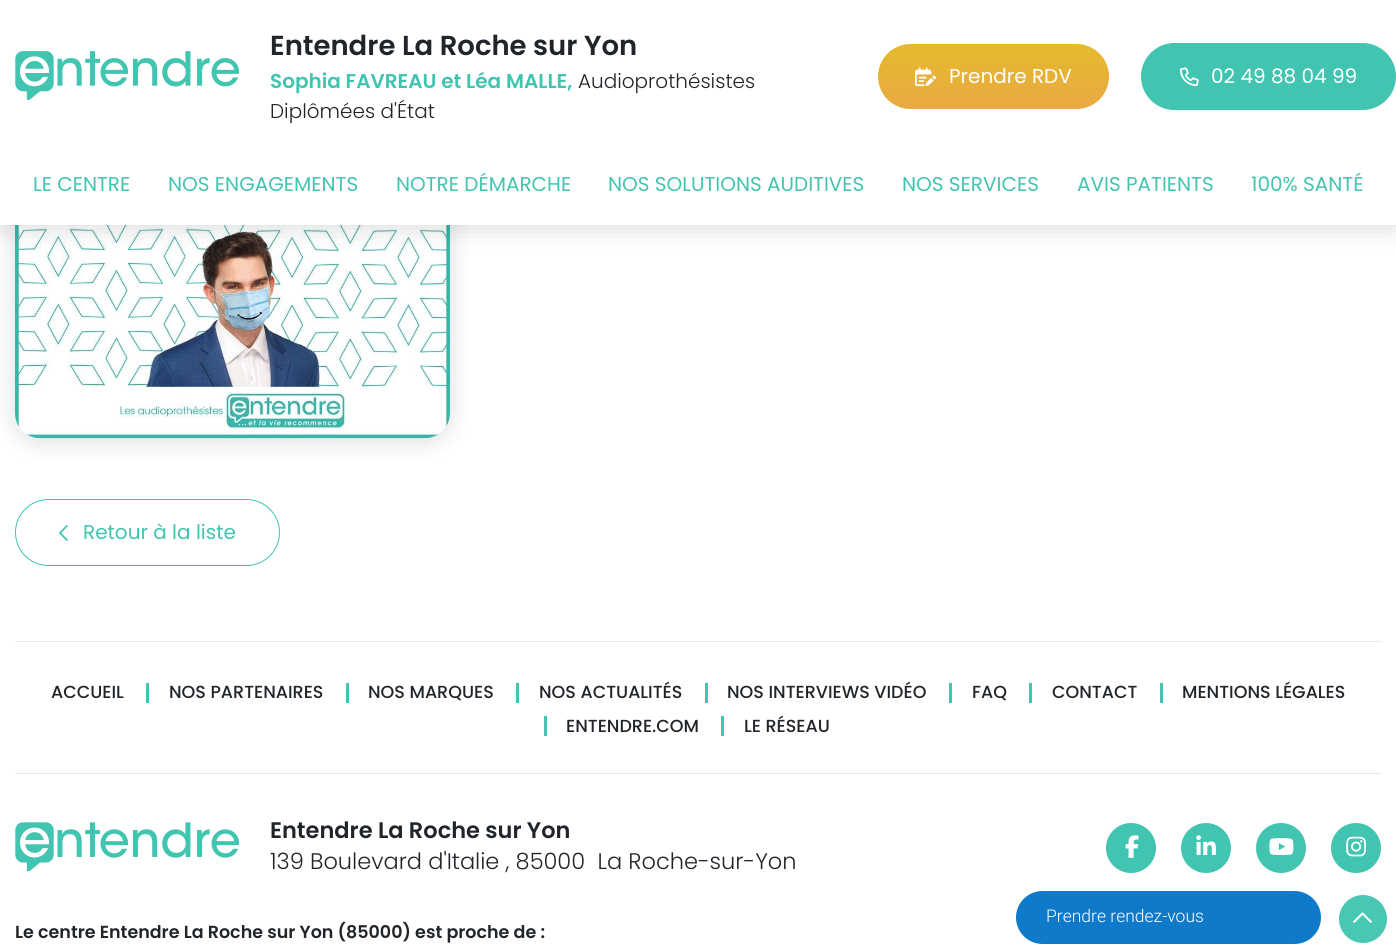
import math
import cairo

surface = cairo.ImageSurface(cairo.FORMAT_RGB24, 1396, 952)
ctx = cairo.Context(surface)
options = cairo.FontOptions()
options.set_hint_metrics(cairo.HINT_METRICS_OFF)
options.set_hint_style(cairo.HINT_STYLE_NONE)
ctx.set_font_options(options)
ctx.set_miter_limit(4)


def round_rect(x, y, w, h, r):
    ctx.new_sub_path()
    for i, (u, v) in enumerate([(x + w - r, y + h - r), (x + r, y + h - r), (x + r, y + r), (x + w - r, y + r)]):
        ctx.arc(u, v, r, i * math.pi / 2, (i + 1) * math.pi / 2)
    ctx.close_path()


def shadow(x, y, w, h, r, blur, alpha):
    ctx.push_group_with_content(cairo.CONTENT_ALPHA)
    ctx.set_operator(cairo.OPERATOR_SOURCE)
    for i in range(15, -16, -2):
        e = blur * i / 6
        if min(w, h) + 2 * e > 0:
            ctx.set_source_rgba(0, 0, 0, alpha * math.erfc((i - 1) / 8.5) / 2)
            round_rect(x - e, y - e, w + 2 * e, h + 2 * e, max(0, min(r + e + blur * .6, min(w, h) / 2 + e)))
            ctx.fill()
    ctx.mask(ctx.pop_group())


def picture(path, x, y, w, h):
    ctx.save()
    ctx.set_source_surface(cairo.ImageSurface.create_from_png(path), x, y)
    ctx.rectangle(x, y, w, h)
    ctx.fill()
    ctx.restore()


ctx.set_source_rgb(1, 1, 1)
ctx.paint()
ctx.set_source_rgb(0, 0, 0)
shadow(15, 150, 435, 291, 25, 12, 0.14)
picture("img5.png", 15, 225, 435, 214)
shadow(0, 3, 1396, 225, 0, 12, 0.14)
ctx.set_source_rgb(1, 1, 1)
ctx.rectangle(0, 0, 1396, 225)
ctx.fill()
picture("img1.png", 15, 51, 224, 49)
ctx.select_font_face("Poppins SemiBold")
ctx.set_font_size(27.5)
ctx.set_source_rgb(0.129, 0.145, 0.161)
ctx.move_to(270, 55)
ctx.show_text("Entendre La Roche sur Yon")
ctx.set_font_size(20)
ctx.set_source_rgb(0.255, 0.769, 0.69)
ctx.move_to(270, 88)
ctx.show_text("Sophia FAVREAU et Léa MALLE,")
ctx.select_font_face("Poppins Light")
ctx.set_source_rgb(0.129, 0.145, 0.161)
ctx.move_to(578, 88)
ctx.show_text("Audioprothésistes")
ctx.move_to(270, 118)
ctx.show_text("Diplômées d'État")
gradient = cairo.LinearGradient(993, 44, 993, 109)
gradient.add_color_stop_rgba(0, 0.898, 0.729, 0.173, 1)
gradient.add_color_stop_rgba(1, 0.914, 0.663, 0.263, 1)
ctx.set_source(gradient)
round_rect(878, 44, 231, 65, 32.5)
ctx.fill()
picture("img2.png", 915, 67, 22, 20)
ctx.select_font_face("Poppins")
ctx.set_source_rgb(1, 1, 1)
ctx.move_to(949, 83)
ctx.show_text("Prendre RDV")
ctx.set_source_rgb(0.255, 0.769, 0.69)
round_rect(1141.5, 43.5, 254, 66, 33)
ctx.fill_preserve()
ctx.set_line_width(1)
ctx.stroke()
picture("img3.png", 1180, 67, 19, 20)
ctx.set_source_rgb(1, 1, 1)
ctx.move_to(1211, 83)
ctx.show_text("02 49 88 04 99")
ctx.set_source_rgb(0.255, 0.769, 0.69)
ctx.move_to(33, 191)
ctx.show_text("LE CENTRE")
ctx.move_to(168, 191)
ctx.show_text("NOS ENGAGEMENTS")
ctx.move_to(396, 191)
ctx.show_text("NOTRE DÉMARCHE")
ctx.move_to(608, 191)
ctx.show_text("NOS SOLUTIONS AUDITIVES")
ctx.move_to(902, 191)
ctx.show_text("NOS SERVICES")
ctx.move_to(1077, 191)
ctx.show_text("AVIS PATIENTS")
ctx.move_to(1251, 191)
ctx.show_text("100% SANTÉ")
ctx.set_source_rgb(0.063, 0.478, 0.792)
round_rect(1016, 891, 305, 53, 26.5)
ctx.fill()
ctx.select_font_face("Roboto Light")
ctx.set_font_size(17.5)
ctx.set_source_rgb(1, 1, 1)
ctx.move_to(1046, 922)
ctx.show_text("Prendre rendez-vous")
ctx.set_source_rgb(0.286, 0.78, 0.702)
ctx.new_path()
ctx.arc(1363, 919, 24.5, 0, 2 * math.pi)
ctx.fill_preserve()
ctx.set_source_rgb(1, 1, 1)
ctx.stroke()
picture("img4.png", 1353, 912, 19, 11)
round_rect(15.5, 499.5, 264, 66, 33)
ctx.set_source_rgb(0.255, 0.769, 0.69)
ctx.stroke()
picture("img6.png", 59, 525, 9, 16)
ctx.select_font_face("Poppins")
ctx.set_font_size(20)
ctx.move_to(83, 539)
ctx.show_text("Retour à la liste")
ctx.set_source_rgb(0.902, 0.902, 0.902)
ctx.rectangle(15, 641, 1366, 1)
ctx.fill()
ctx.rectangle(15, 773, 1366, 1)
ctx.fill()
ctx.select_font_face("Poppins Medium")
ctx.set_font_size(17.5)
ctx.set_source_rgb(0.129, 0.145, 0.161)
ctx.move_to(51, 698)
ctx.show_text("ACCUEIL")
ctx.set_source_rgb(0.255, 0.769, 0.69)
ctx.rectangle(146, 683, 3, 20)
ctx.fill()
ctx.set_source_rgb(0.129, 0.145, 0.161)
ctx.move_to(169, 698)
ctx.show_text("NOS PARTENAIRES")
ctx.set_source_rgb(0.255, 0.769, 0.69)
ctx.rectangle(346, 683, 3, 20)
ctx.fill()
ctx.set_source_rgb(0.129, 0.145, 0.161)
ctx.move_to(368, 698)
ctx.show_text("NOS MARQUES")
ctx.set_source_rgb(0.255, 0.769, 0.69)
ctx.rectangle(516, 683, 3, 20)
ctx.fill()
ctx.set_source_rgb(0.129, 0.145, 0.161)
ctx.move_to(539, 698)
ctx.show_text("NOS ACTUALITÉS")
ctx.set_source_rgb(0.255, 0.769, 0.69)
ctx.rectangle(705, 683, 3, 20)
ctx.fill()
ctx.set_source_rgb(0.129, 0.145, 0.161)
ctx.move_to(727, 698)
ctx.show_text("NOS INTERVIEWS VIDÉO")
ctx.set_source_rgb(0.255, 0.769, 0.69)
ctx.rectangle(949, 683, 3, 20)
ctx.fill()
ctx.set_source_rgb(0.129, 0.145, 0.161)
ctx.move_to(972, 698)
ctx.show_text("FAQ")
ctx.set_source_rgb(0.255, 0.769, 0.69)
ctx.rectangle(1029, 683, 3, 20)
ctx.fill()
ctx.set_source_rgb(0.129, 0.145, 0.161)
ctx.move_to(1052, 698)
ctx.show_text("CONTACT")
ctx.set_source_rgb(0.255, 0.769, 0.69)
ctx.rectangle(1160, 683, 3, 20)
ctx.fill()
ctx.set_source_rgb(0.129, 0.145, 0.161)
ctx.move_to(1182, 698)
ctx.show_text("MENTIONS LÉGALES")
ctx.set_source_rgb(0.255, 0.769, 0.69)
ctx.rectangle(544, 716, 3, 20)
ctx.fill()
ctx.set_source_rgb(0.129, 0.145, 0.161)
ctx.move_to(566, 732)
ctx.show_text("ENTENDRE.COM")
ctx.set_source_rgb(0.255, 0.769, 0.69)
ctx.rectangle(721, 716, 3, 20)
ctx.fill()
ctx.set_source_rgb(0.129, 0.145, 0.161)
ctx.move_to(744, 732)
ctx.show_text("LE RÉSEAU")
picture("img7.png", 15, 822, 224, 50)
ctx.select_font_face("Poppins SemiBold")
ctx.set_font_size(22.5)
ctx.move_to(270, 838)
ctx.show_text("Entendre La Roche sur Yon")
ctx.select_font_face("Poppins Light")
ctx.move_to(270, 869)
ctx.show_text("139 Boulevard d'Italie , 85000  La Roche-sur-Yon")
ctx.set_source_rgb(0.255, 0.769, 0.69)
ctx.new_path()
ctx.arc(1131, 848, 25, 0, 2 * math.pi)
ctx.fill()
picture("img8.png", 1125, 835, 14, 23)
ctx.arc(1206, 848, 25, 0, 2 * math.pi)
ctx.fill()
picture("img9.png", 1196, 835, 20, 20)
ctx.arc(1281, 848, 25, 0, 2 * math.pi)
ctx.fill()
picture("img10.png", 1269, 838, 25, 17)
ctx.arc(1356, 848, 25, 0, 2 * math.pi)
ctx.fill()
picture("img11.png", 1346, 836, 20, 21)
ctx.select_font_face("Poppins SemiBold")
ctx.set_font_size(17.5)
ctx.set_source_rgb(0.129, 0.145, 0.161)
ctx.move_to(15, 938)
ctx.show_text("Le centre Entendre La Roche sur Yon (85000) est proche de :")
surface.write_to_png("page.png")
